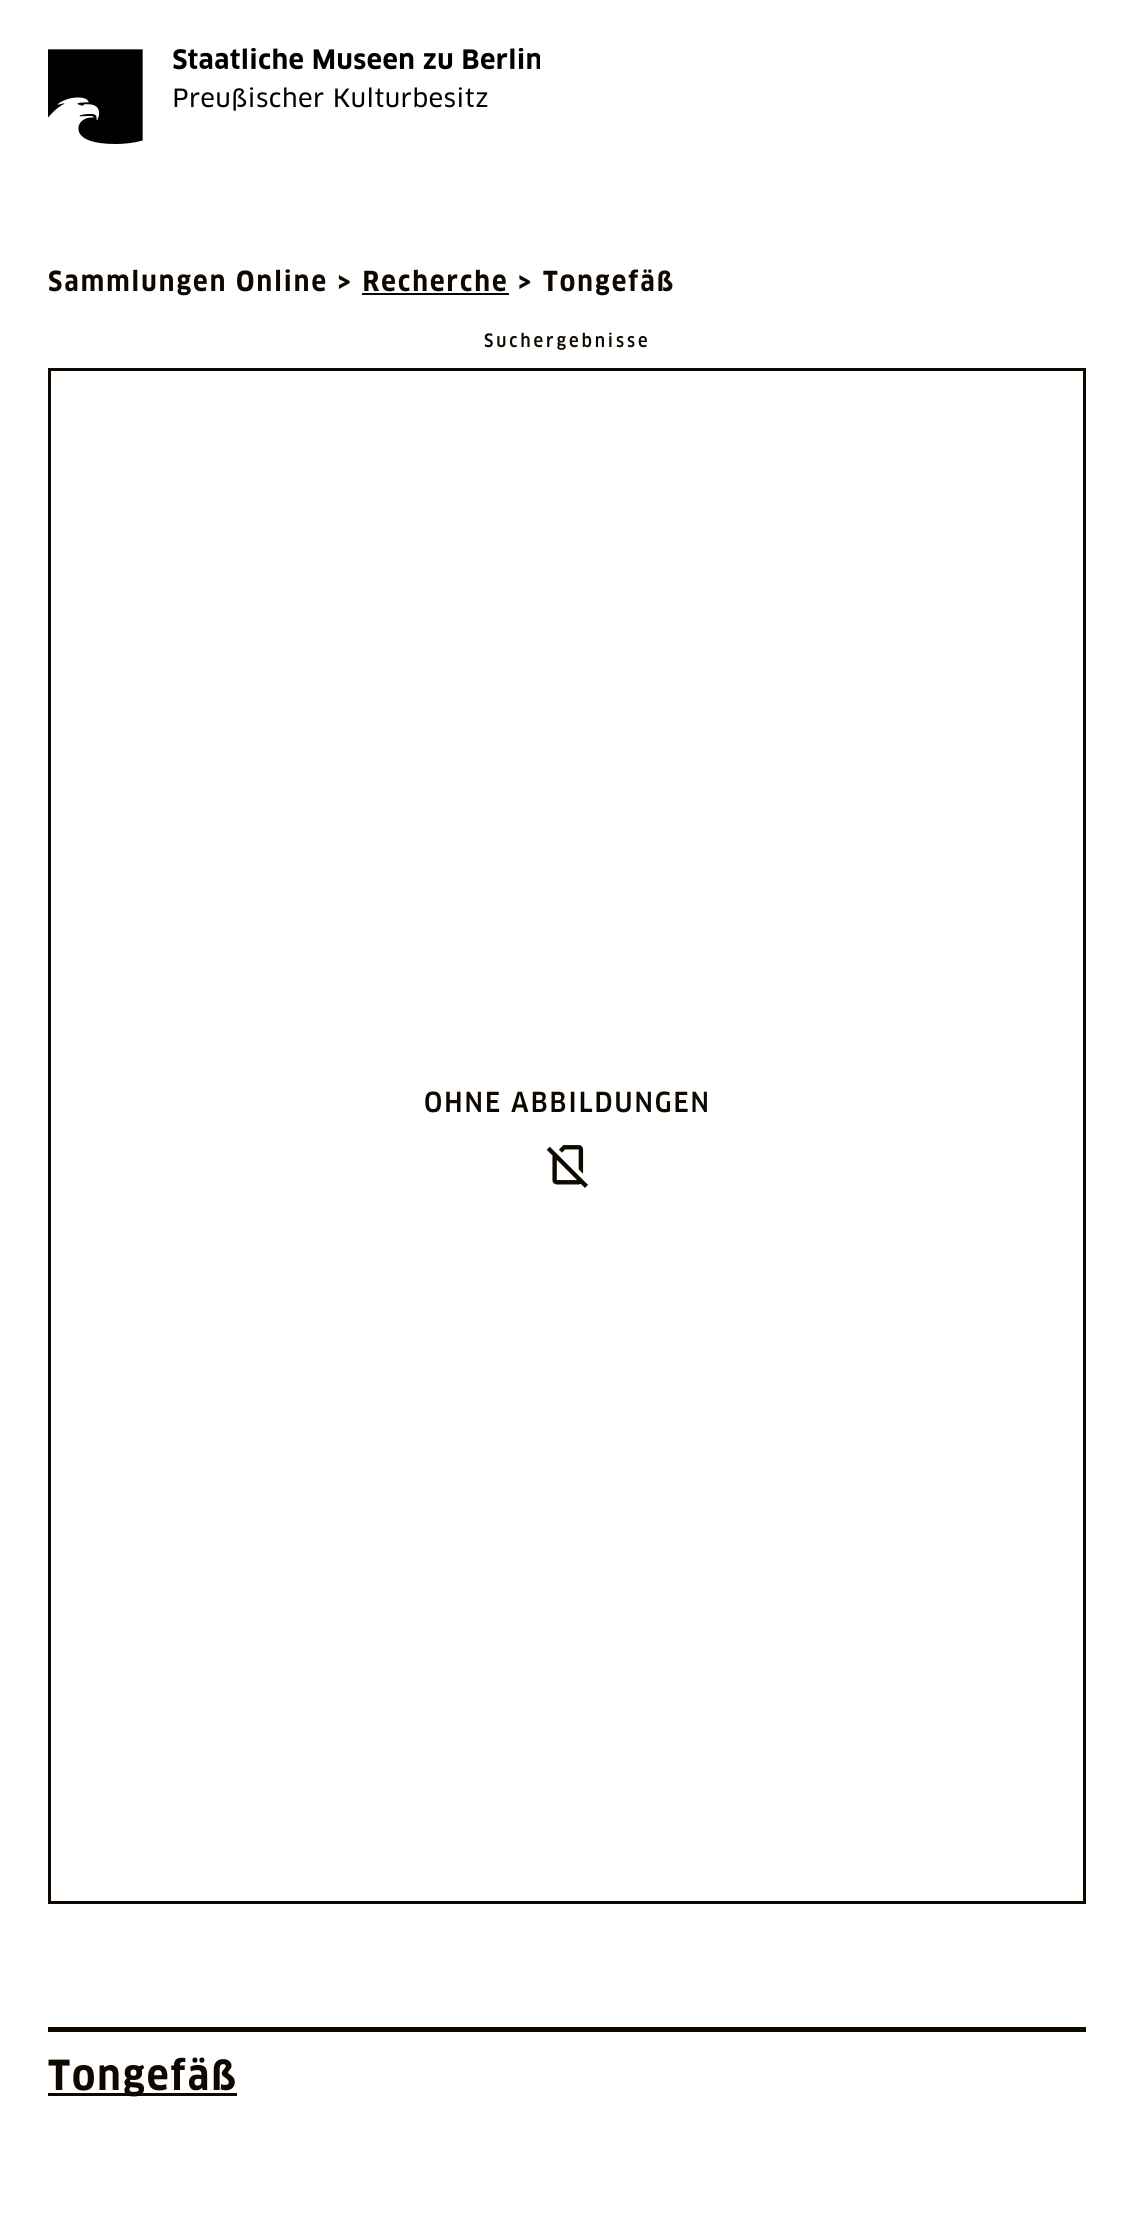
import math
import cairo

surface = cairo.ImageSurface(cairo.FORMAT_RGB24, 1133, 2236)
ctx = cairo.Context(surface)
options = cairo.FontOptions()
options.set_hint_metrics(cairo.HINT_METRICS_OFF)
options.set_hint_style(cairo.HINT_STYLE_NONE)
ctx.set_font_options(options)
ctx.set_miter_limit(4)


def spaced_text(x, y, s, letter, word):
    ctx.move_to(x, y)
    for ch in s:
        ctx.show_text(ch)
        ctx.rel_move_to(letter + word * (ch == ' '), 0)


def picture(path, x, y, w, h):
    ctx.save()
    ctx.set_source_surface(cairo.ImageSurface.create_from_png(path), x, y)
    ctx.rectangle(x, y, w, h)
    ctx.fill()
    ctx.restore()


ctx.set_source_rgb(1, 1, 1)
ctx.paint()
picture("img1.png", 48, 48, 492, 96)
ctx.select_font_face("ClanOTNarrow", cairo.FONT_SLANT_NORMAL, cairo.FONT_WEIGHT_BOLD)
ctx.set_font_size(27)
ctx.set_source_rgb(0.059, 0.035, 0)
spaced_text(48, 291, "Sammlungen Online > Recherche > Tongefäß", 2.05, 0)
ctx.rectangle(362, 293, 147, 2)
ctx.fill()
ctx.select_font_face("ClanOTNarrow Medium")
ctx.set_font_size(18)
spaced_text(484, 347, "Suchergebnisse", 2.9, 0)
ctx.rectangle(49.5, 369.5, 1035, 1533)
ctx.set_line_width(3)
ctx.stroke()
ctx.set_font_size(27)
spaced_text(424, 1112, "OHNE ABBILDUNGEN", 2, 0)
picture("img2.png", 546, 1145, 42, 43)
ctx.rectangle(48, 2027, 1038, 5)
ctx.fill()
ctx.rectangle(48, 2093, 189, 3)
ctx.fill()
ctx.select_font_face("ClanOTNarrow", cairo.FONT_SLANT_NORMAL, cairo.FONT_WEIGHT_BOLD)
ctx.set_font_size(40.5)
spaced_text(48, 2090, "Tongefäß", 2, 0)
surface.write_to_png("page.png")
